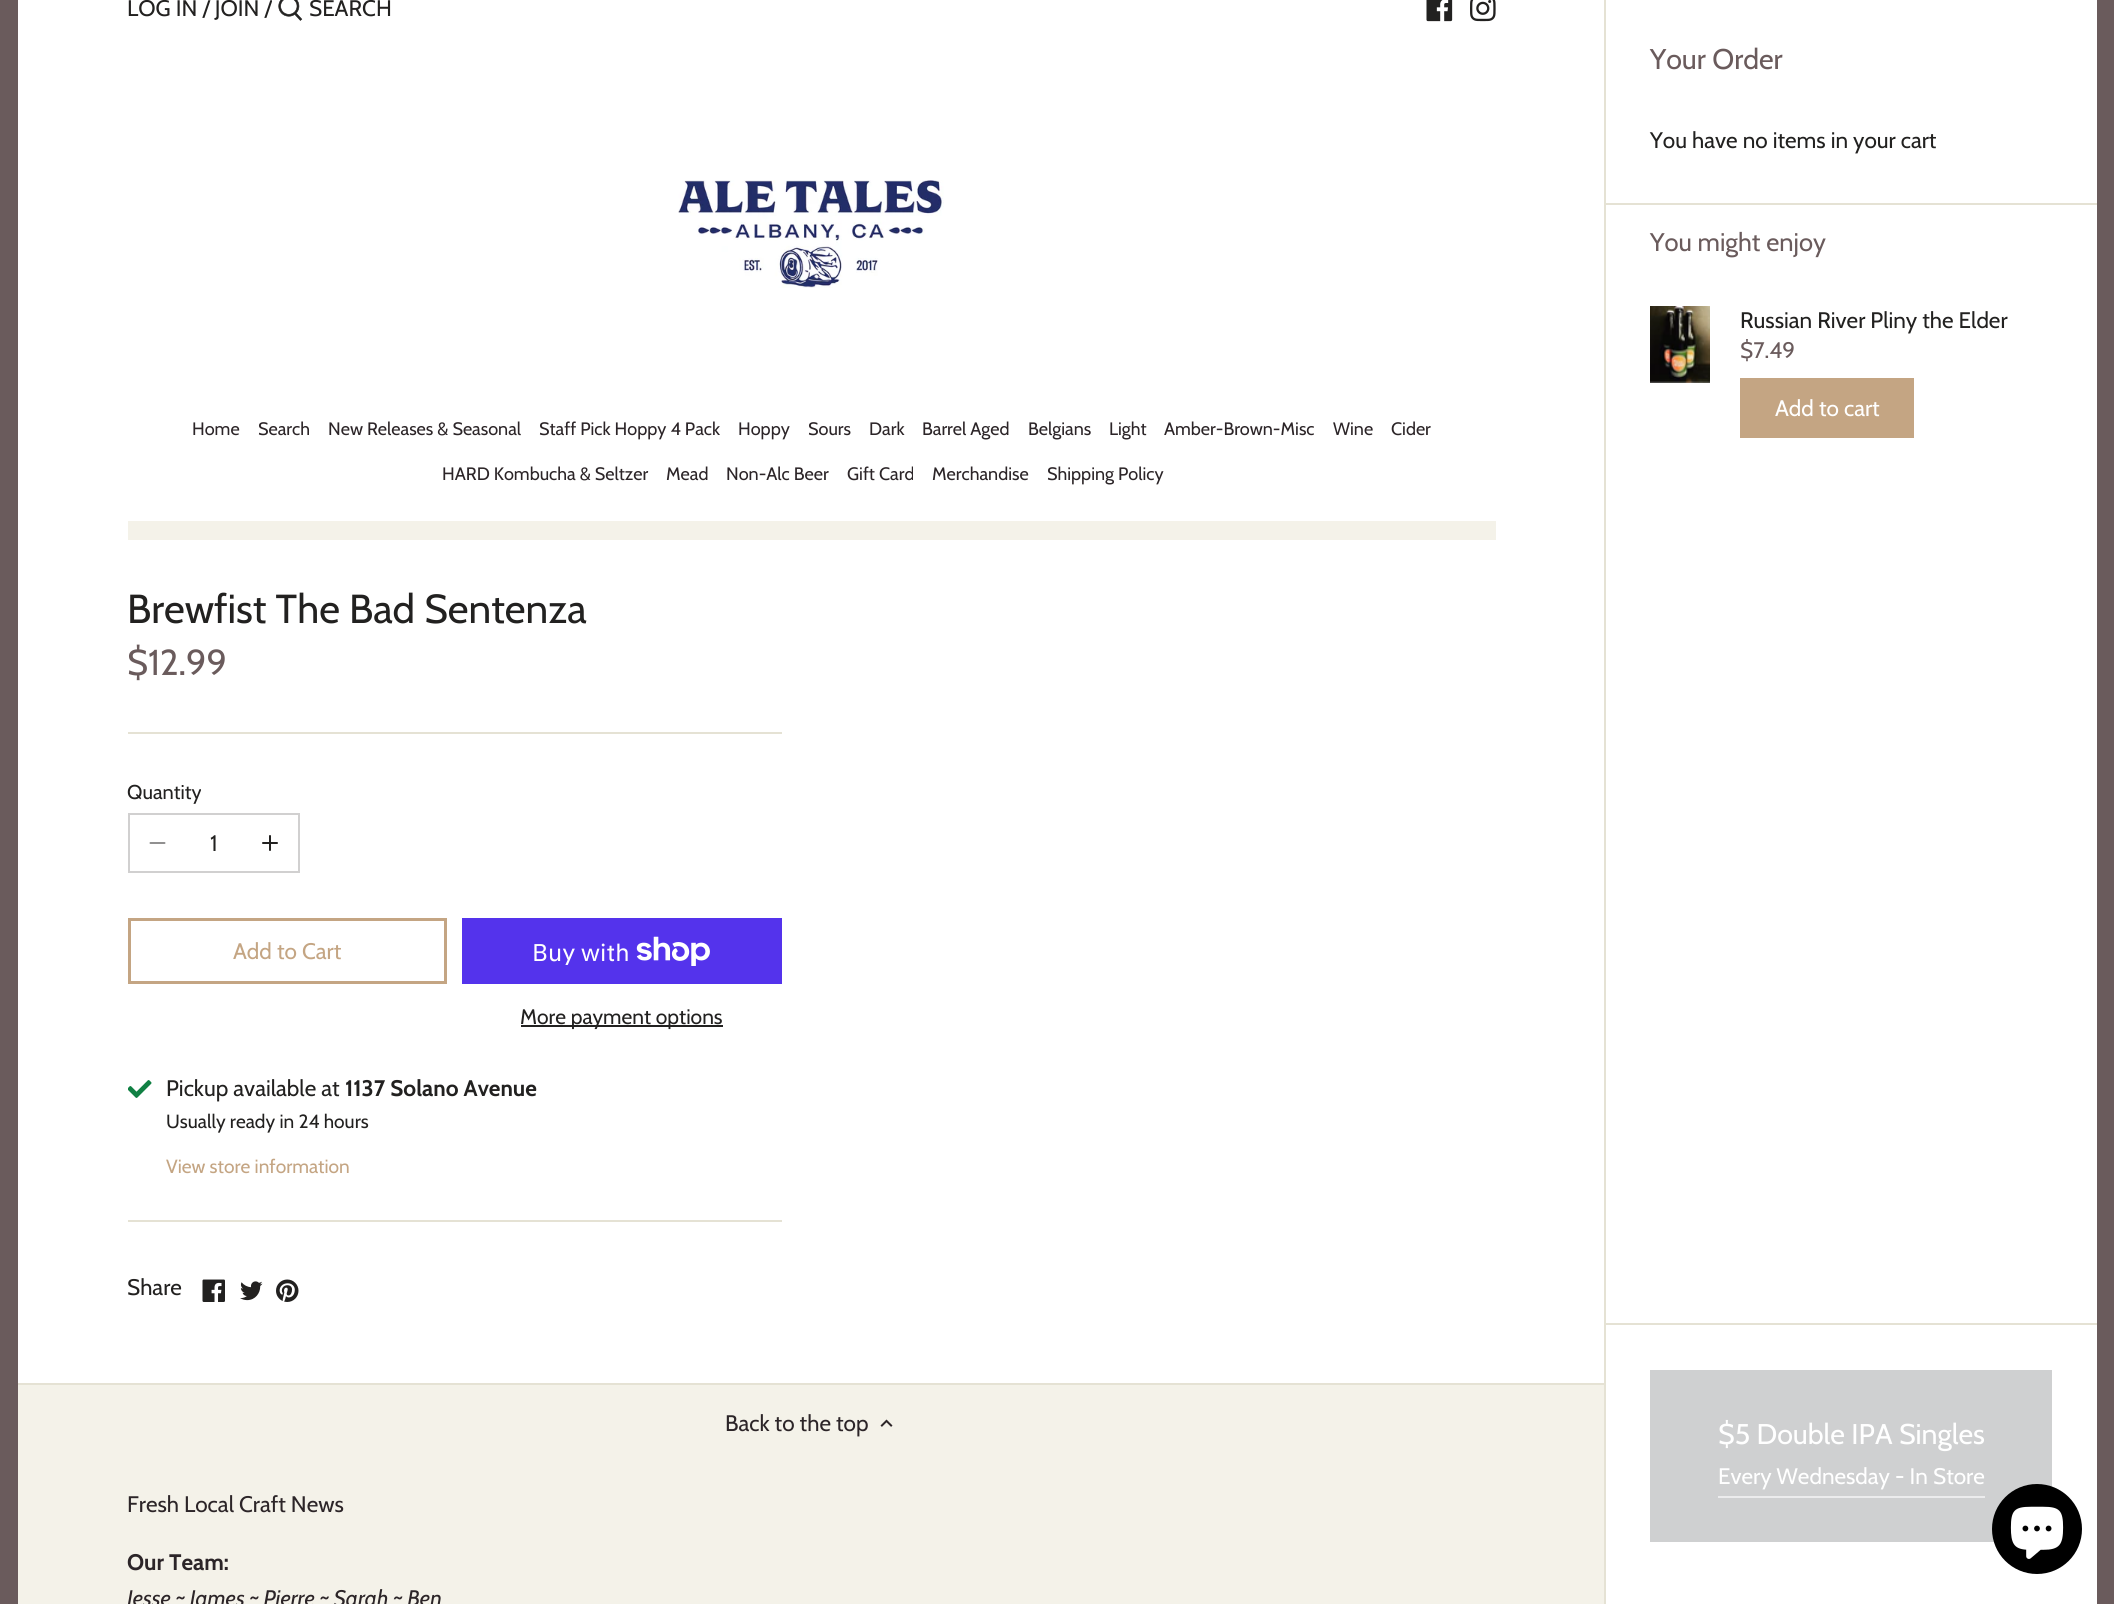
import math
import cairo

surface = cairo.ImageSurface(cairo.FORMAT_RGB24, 2114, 1604)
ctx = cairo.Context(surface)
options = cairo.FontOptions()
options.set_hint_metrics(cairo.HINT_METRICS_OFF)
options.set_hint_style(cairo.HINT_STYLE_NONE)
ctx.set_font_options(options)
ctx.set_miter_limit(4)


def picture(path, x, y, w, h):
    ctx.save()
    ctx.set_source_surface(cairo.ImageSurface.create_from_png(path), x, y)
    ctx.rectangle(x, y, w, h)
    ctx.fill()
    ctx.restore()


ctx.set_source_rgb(0.957, 0.949, 0.914)
ctx.paint()
ctx.rectangle(9, -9, 1605, 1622)
ctx.set_source_rgb(0.416, 0.357, 0.361)
ctx.set_line_width(18)
ctx.stroke()
ctx.set_source_rgb(1, 1, 1)
ctx.rectangle(18, 0, 1586, 1383)
ctx.fill()
ctx.select_font_face("Cabin")
ctx.set_font_size(22.5)
ctx.set_source_rgb(0.133, 0.129, 0.125)
ctx.move_to(127, 16)
ctx.show_text("LOG IN / JOIN /")
picture("img1.png", 278, 0, 25, 21)
ctx.move_to(309, 16)
ctx.show_text("SEARCH")
picture("img2.png", 1426, 0, 27, 22)
picture("img3.png", 1470, 0, 26, 22)
picture("img4.png", 678, 180, 266, 108)
ctx.set_font_size(18)
ctx.set_source_rgb(0.173, 0.145, 0.157)
ctx.move_to(192, 435)
ctx.show_text("Home")
ctx.move_to(258, 435)
ctx.show_text("Search")
ctx.move_to(328, 435)
ctx.show_text("New Releases & Seasonal")
ctx.move_to(539, 435)
ctx.show_text("Staff Pick Hoppy 4 Pack")
ctx.move_to(738, 435)
ctx.show_text("Hoppy")
ctx.move_to(808, 435)
ctx.show_text("Sours")
ctx.move_to(869, 435)
ctx.show_text("Dark")
ctx.move_to(922, 435)
ctx.show_text("Barrel Aged")
ctx.move_to(1028, 435)
ctx.show_text("Belgians")
ctx.move_to(1109, 435)
ctx.show_text("Light")
ctx.move_to(1164, 435)
ctx.show_text("Amber-Brown-Misc")
ctx.move_to(1333, 435)
ctx.show_text("Wine")
ctx.move_to(1391, 435)
ctx.show_text("Cider")
ctx.move_to(442, 480)
ctx.show_text("HARD Kombucha & Seltzer")
ctx.move_to(666, 480)
ctx.show_text("Mead")
ctx.move_to(726, 480)
ctx.show_text("Non-Alc Beer")
ctx.move_to(847, 480)
ctx.show_text("Gift Card")
ctx.move_to(932, 480)
ctx.show_text("Merchandise")
ctx.move_to(1047, 480)
ctx.show_text("Shipping Policy")
ctx.set_source_rgb(0.957, 0.949, 0.914)
ctx.rectangle(128, 521, 1368, 19)
ctx.fill()
ctx.set_source_rgb(0.898, 0.886, 0.831)
ctx.rectangle(128, 732, 654, 2)
ctx.fill()
ctx.set_font_size(40.5)
ctx.set_source_rgb(0.133, 0.129, 0.125)
ctx.move_to(127, 623)
ctx.show_text("Brewfist The Bad Sentenza")
ctx.set_font_size(36)
ctx.set_source_rgb(0.416, 0.357, 0.361)
ctx.move_to(127, 675)
ctx.show_text("$12.99")
ctx.set_source_rgb(0.898, 0.886, 0.831)
ctx.rectangle(128, 1220, 654, 2)
ctx.fill()
ctx.set_font_size(20)
ctx.set_source_rgb(0.133, 0.129, 0.125)
ctx.move_to(127, 799)
ctx.show_text("Quantity")
ctx.rectangle(129, 814, 170, 58)
ctx.set_source_rgb(0.82, 0.816, 0.816)
ctx.set_line_width(2)
ctx.stroke()
ctx.new_path()
ctx.move_to(150.5, 843)
ctx.line_to(164.5, 843)
ctx.set_source_rgb(0.569, 0.565, 0.565)
ctx.set_line_cap(cairo.LINE_CAP_ROUND)
ctx.set_line_join(cairo.LINE_JOIN_ROUND)
ctx.stroke()
ctx.set_font_size(22.5)
ctx.set_source_rgb(0.133, 0.129, 0.125)
ctx.move_to(210, 851)
ctx.show_text("1")
ctx.new_path()
ctx.move_to(270, 836)
ctx.line_to(270, 850)
ctx.move_to(263, 843)
ctx.line_to(277, 843)
ctx.stroke()
ctx.rectangle(129.5, 919.5, 316, 63)
ctx.set_source_rgb(0.769, 0.647, 0.514)
ctx.set_line_width(3)
ctx.set_line_cap(cairo.LINE_CAP_BUTT)
ctx.set_line_join(cairo.LINE_JOIN_MITER)
ctx.stroke()
ctx.move_to(233, 959)
ctx.show_text("Add to Cart")
ctx.set_source_rgb(0.329, 0.2, 0.922)
ctx.rectangle(462, 918, 320, 66)
ctx.fill()
ctx.select_font_face("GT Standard")
ctx.set_font_size(24)
ctx.set_source_rgb(1, 1, 1)
ctx.move_to(532, 961)
ctx.show_text("Buy with")
picture("img5.png", 636, 936, 74, 30)
ctx.set_source_rgb(0.133, 0.129, 0.125)
ctx.rectangle(521, 1025, 202, 2)
ctx.fill()
ctx.select_font_face("Cabin")
ctx.set_font_size(21)
ctx.move_to(520, 1024)
ctx.show_text("More payment options")
picture("img6.png", 128, 1080, 24, 18)
ctx.set_font_size(22.5)
ctx.move_to(166, 1096)
ctx.show_text("Pickup available at")
ctx.select_font_face("Cabin", cairo.FONT_SLANT_NORMAL, cairo.FONT_WEIGHT_BOLD)
ctx.move_to(345, 1096)
ctx.show_text("1137 Solano Avenue")
ctx.select_font_face("Cabin")
ctx.set_font_size(19.1)
ctx.move_to(166, 1128)
ctx.show_text("Usually ready in 24 hours")
ctx.set_source_rgb(0.769, 0.647, 0.514)
ctx.move_to(166, 1173)
ctx.show_text("View store information")
ctx.set_font_size(22.5)
ctx.set_source_rgb(0.133, 0.129, 0.125)
ctx.move_to(127, 1295)
ctx.show_text("Share")
picture("img7.png", 202, 1279, 23, 23)
picture("img8.png", 240, 1281, 23, 20)
picture("img9.png", 276, 1279, 23, 23)
ctx.set_source_rgb(1, 1, 1)
ctx.rectangle(1606, 0, 491, 1604)
ctx.fill()
ctx.set_source_rgb(0.898, 0.886, 0.831)
ctx.rectangle(18, 1383, 1587, 2)
ctx.fill()
ctx.set_source_rgb(0.173, 0.145, 0.157)
ctx.move_to(725, 1431)
ctx.show_text("Back to the top")
picture("img10.png", 880, 1419, 13, 8)
ctx.move_to(127, 1512)
ctx.show_text("Fresh Local Craft News")
ctx.select_font_face("Cabin", cairo.FONT_SLANT_NORMAL, cairo.FONT_WEIGHT_BOLD)
ctx.move_to(127, 1570)
ctx.show_text("Our Team:")
ctx.select_font_face("Cabin", cairo.FONT_SLANT_ITALIC)
ctx.move_to(127, 1606)
ctx.show_text("Jesse ~ James ~ Pierre ~ Sarah ~ Ben")
ctx.set_source_rgb(0.898, 0.886, 0.831)
ctx.rectangle(1604, 0, 2, 1604)
ctx.fill()
ctx.select_font_face("Cabin")
ctx.set_font_size(28.5)
ctx.set_source_rgb(0.416, 0.357, 0.361)
ctx.move_to(1650, 69)
ctx.show_text("Your Order")
ctx.set_font_size(22.5)
ctx.set_source_rgb(0.133, 0.129, 0.125)
ctx.move_to(1650, 148)
ctx.show_text("You have no items in your cart")
ctx.set_source_rgb(0.898, 0.886, 0.831)
ctx.rectangle(1605, 203, 492, 2)
ctx.fill()
ctx.set_font_size(25.5)
ctx.set_source_rgb(0.416, 0.357, 0.361)
ctx.move_to(1650, 251)
ctx.show_text("You might enjoy")
picture("img11.png", 1650, 306, 60, 77)
ctx.set_font_size(22.5)
ctx.set_source_rgb(0.133, 0.129, 0.125)
ctx.move_to(1740, 328)
ctx.show_text("Russian River Pliny the Elder")
ctx.set_source_rgb(0.416, 0.357, 0.361)
ctx.move_to(1740, 358)
ctx.show_text("$7.49")
ctx.set_source_rgb(0.769, 0.647, 0.514)
ctx.rectangle(1740, 378, 174, 60)
ctx.fill()
ctx.set_source_rgb(1, 1, 1)
ctx.move_to(1775, 416)
ctx.show_text("Add to cart")
ctx.set_source_rgb(0.898, 0.886, 0.831)
ctx.rectangle(1605, 1323, 492, 2)
ctx.fill()
ctx.set_source_rgb(0.812, 0.816, 0.82)
ctx.rectangle(1650, 1370, 402, 172)
ctx.fill()
ctx.set_font_size(28.5)
ctx.set_source_rgb(1, 1, 1)
ctx.move_to(1718, 1444)
ctx.show_text("$5 Double IPA Singles")
ctx.set_font_size(22.5)
ctx.move_to(1718, 1484)
ctx.show_text("Every Wednesday - In Store")
ctx.set_source_rgb(0.925, 0.925, 0.929)
ctx.rectangle(1718, 1496, 267, 2)
ctx.fill()
ctx.set_source_rgb(0.416, 0.357, 0.361)
ctx.rectangle(2097, 0, 17, 1604)
ctx.fill()
ctx.set_source_rgb(0, 0, 0)
ctx.arc(2037, 1529, 45, 0, 2 * math.pi)
ctx.fill()
picture("img12.png", 2010, 1506, 54, 53)
surface.write_to_png("page.png")
